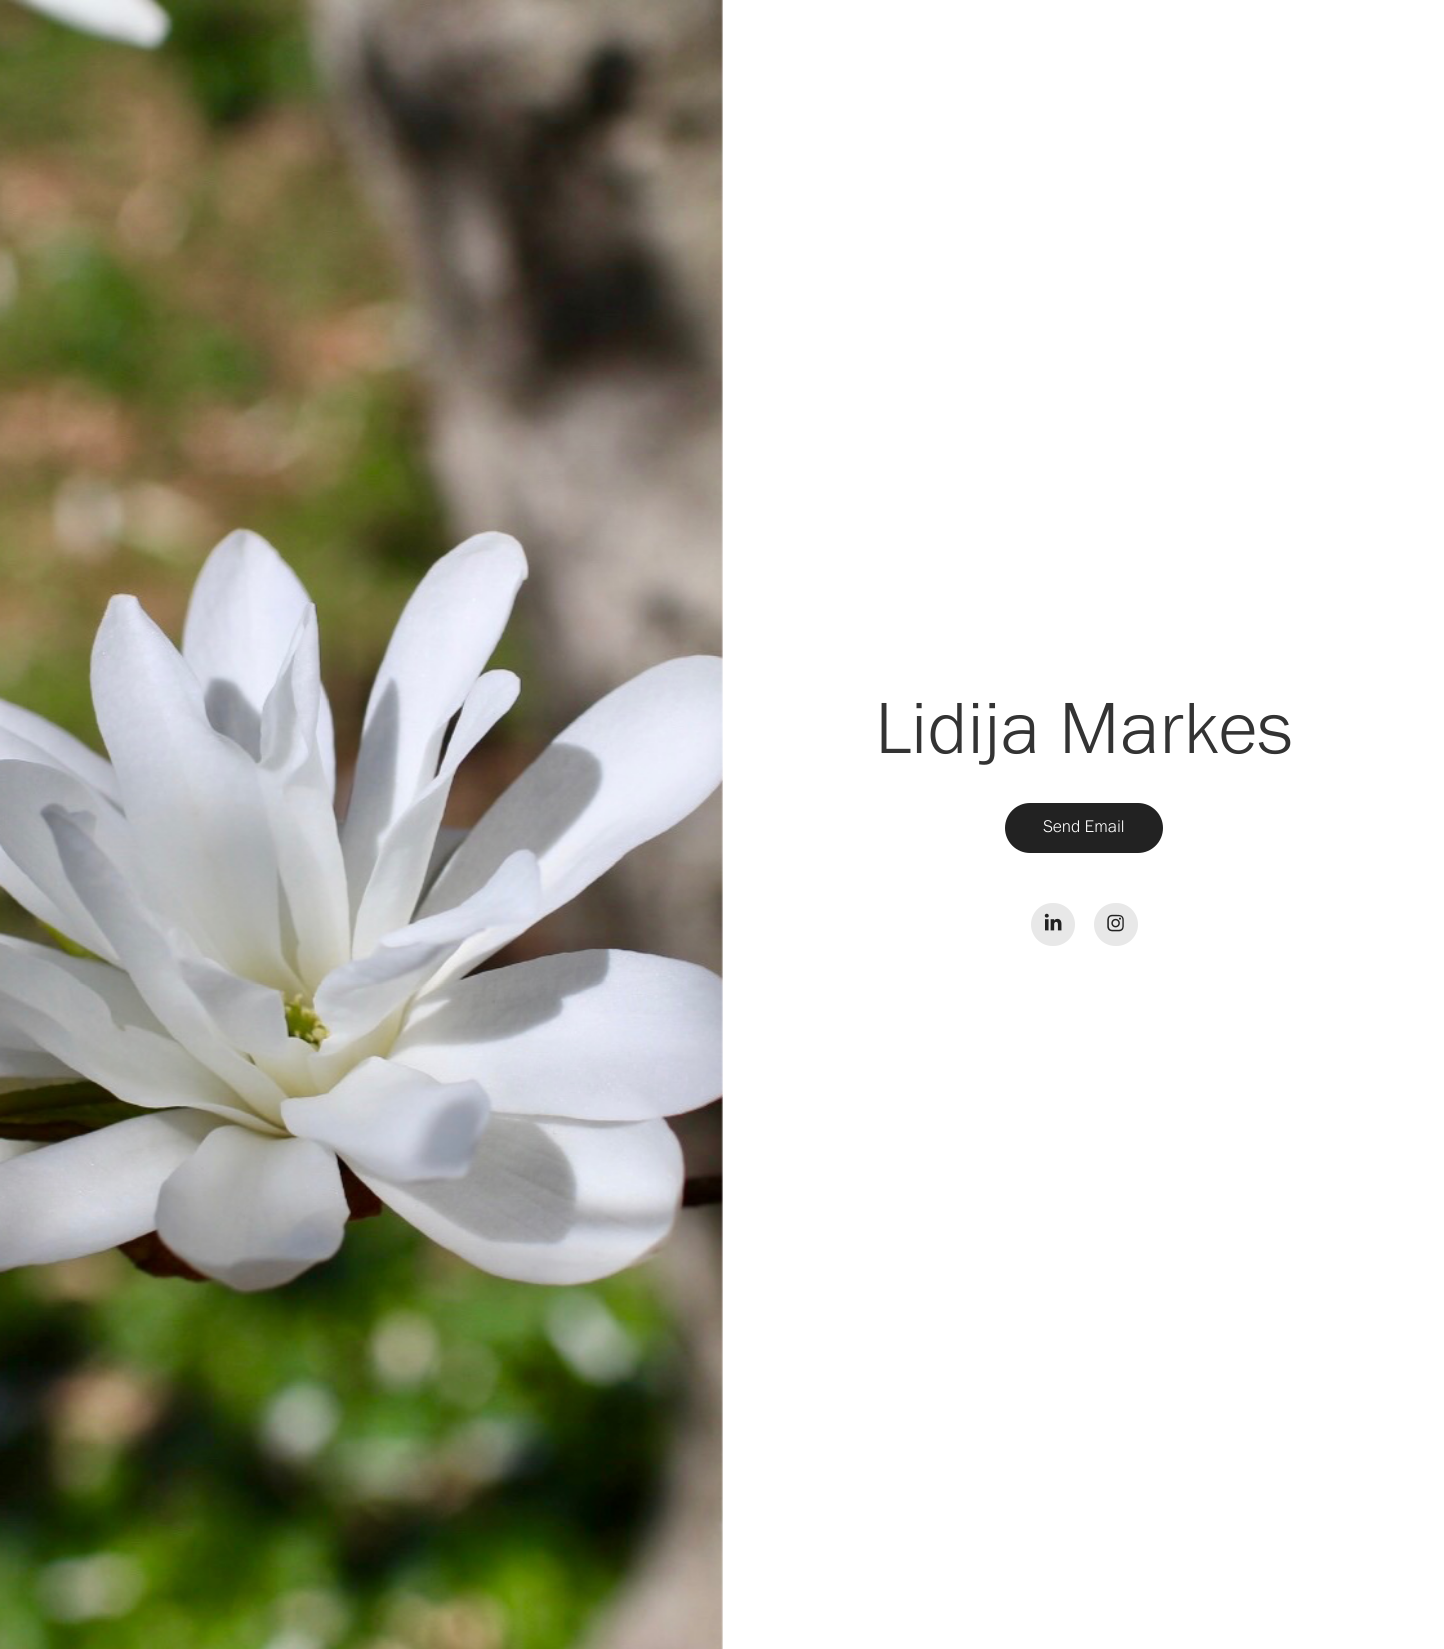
import math
import cairo

surface = cairo.ImageSurface(cairo.FORMAT_RGB24, 1444, 1649)
ctx = cairo.Context(surface)
options = cairo.FontOptions()
options.set_hint_metrics(cairo.HINT_METRICS_OFF)
options.set_hint_style(cairo.HINT_STYLE_NONE)
ctx.set_font_options(options)
ctx.set_miter_limit(4)


def round_rect(x, y, w, h, r):
    ctx.new_sub_path()
    for i, (u, v) in enumerate([(x + w - r, y + h - r), (x + r, y + h - r), (x + r, y + r), (x + w - r, y + r)]):
        ctx.arc(u, v, r, i * math.pi / 2, (i + 1) * math.pi / 2)
    ctx.close_path()


def picture(path, x, y, w, h):
    ctx.save()
    ctx.set_source_surface(cairo.ImageSurface.create_from_png(path), x, y)
    ctx.rectangle(x, y, w, h)
    ctx.fill()
    ctx.restore()


ctx.set_source_rgb(1, 1, 1)
ctx.paint()
picture("img1.png", 0, 0, 723, 1649)
ctx.select_font_face("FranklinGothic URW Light")
ctx.set_font_size(75)
ctx.set_source_rgb(0.2, 0.2, 0.2)
ctx.move_to(875, 753)
ctx.show_text("Lidija Markes")
ctx.set_source_rgb(0.133, 0.133, 0.133)
round_rect(1005, 803, 158, 50, 25)
ctx.fill()
ctx.set_font_size(17.5)
ctx.set_source_rgb(1, 1, 1)
ctx.move_to(1043, 832)
ctx.show_text("Send Email")
ctx.set_source_rgb(0.91, 0.91, 0.91)
round_rect(1031, 903, 44, 43, 21.5)
ctx.fill()
picture("img2.png", 1044, 913, 18, 18)
round_rect(1094, 903, 44, 43, 21.5)
ctx.fill()
picture("img3.png", 1107, 914, 17, 18)
surface.write_to_png("page.png")
